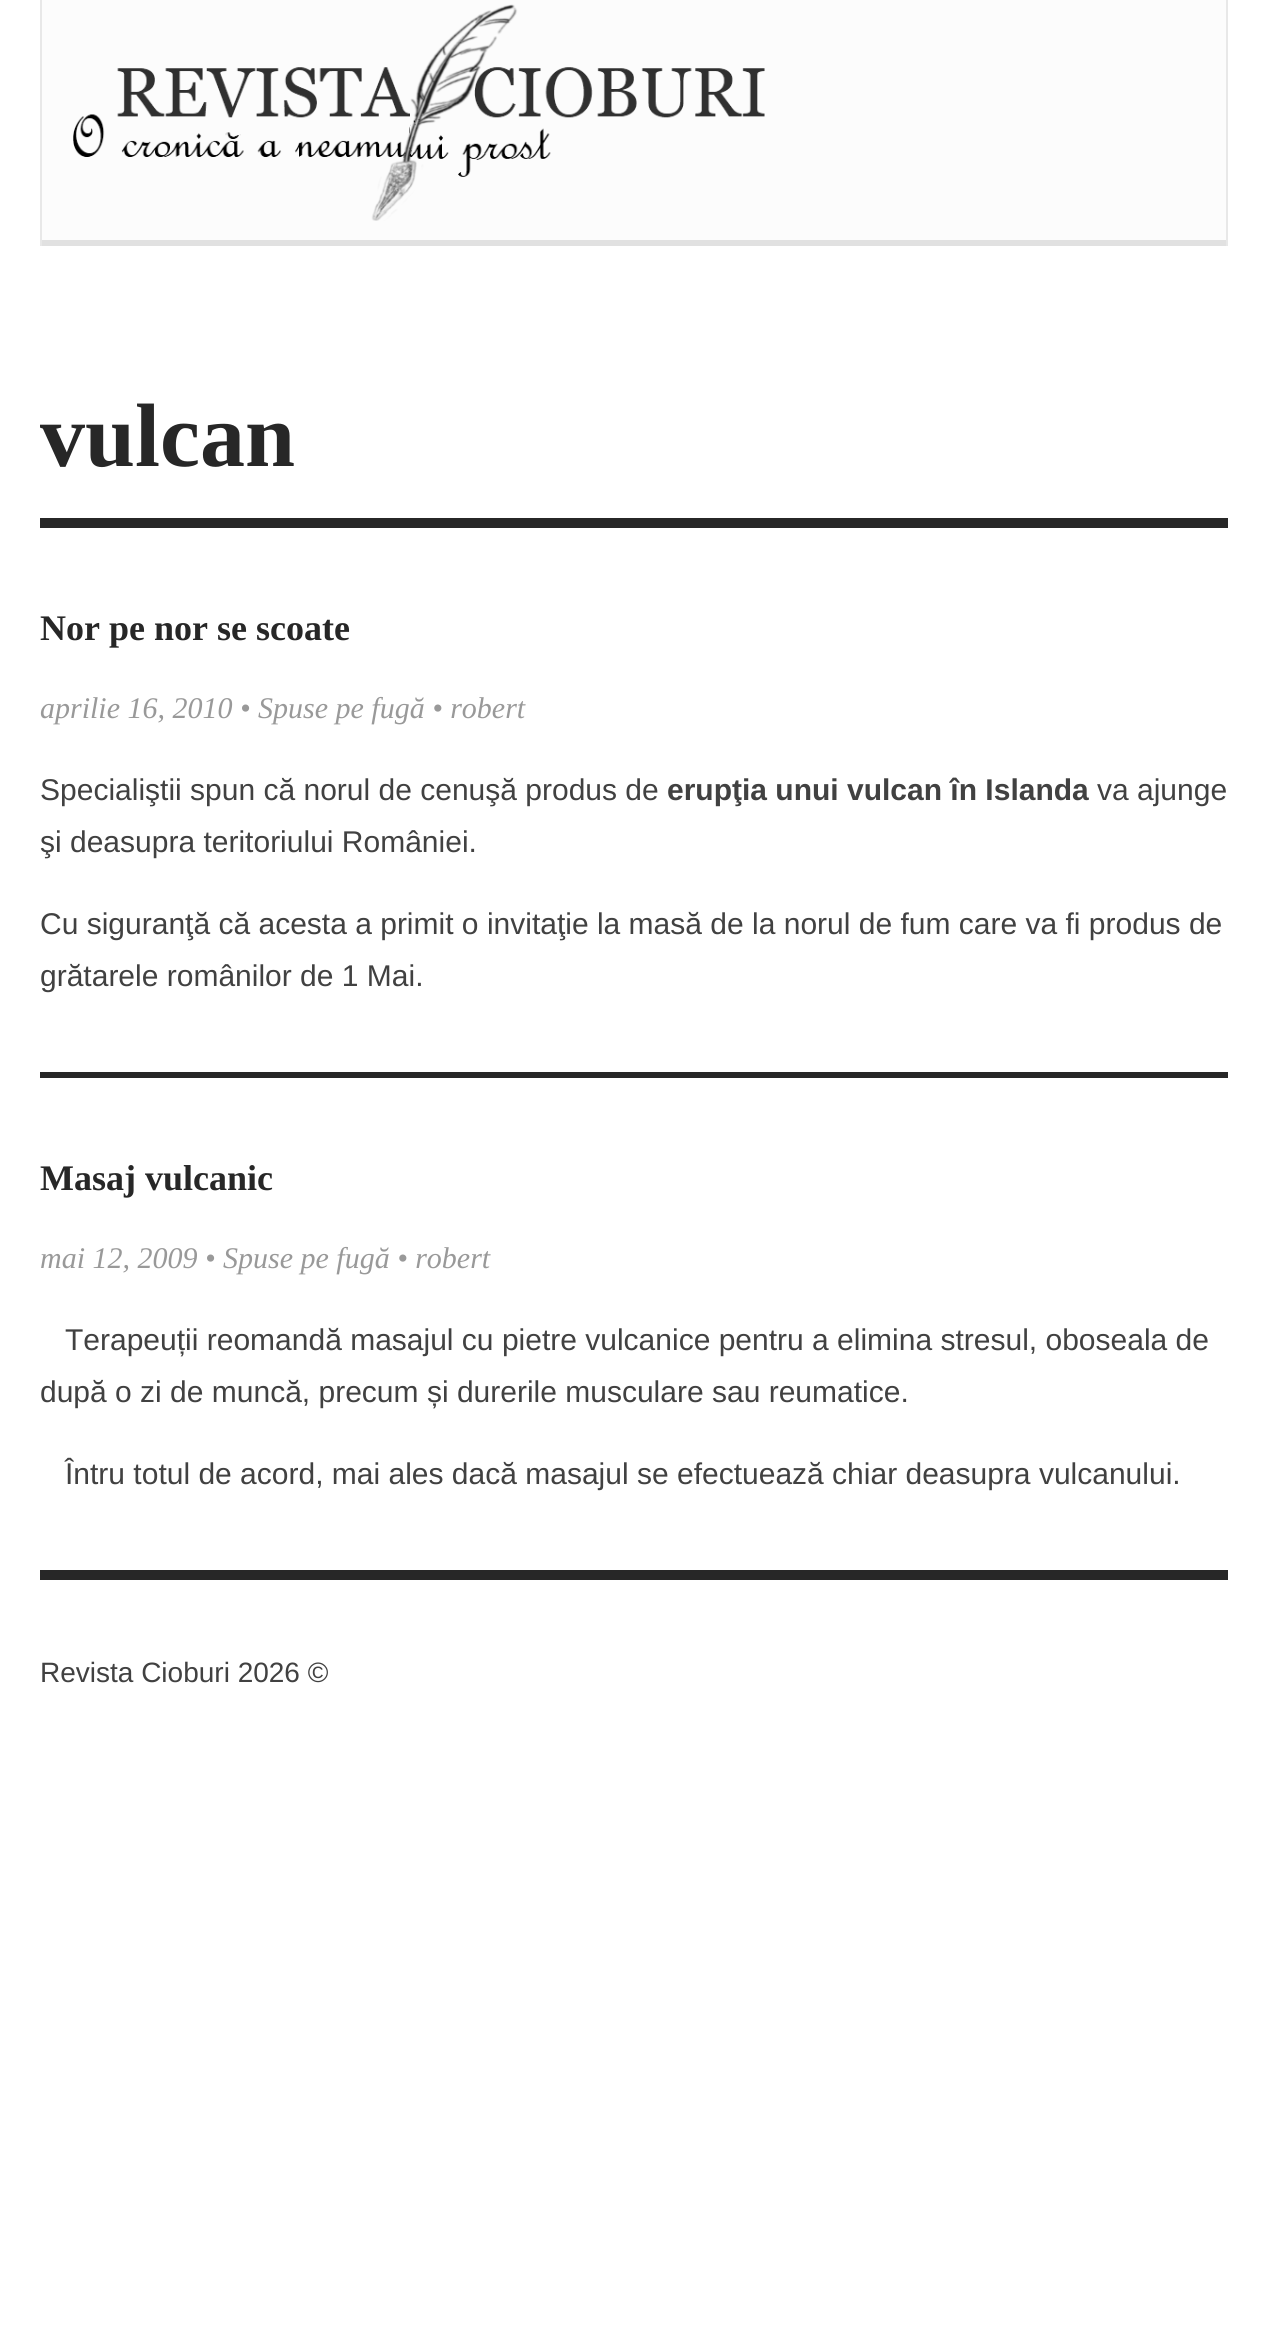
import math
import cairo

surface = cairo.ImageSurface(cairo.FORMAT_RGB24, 1268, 2331)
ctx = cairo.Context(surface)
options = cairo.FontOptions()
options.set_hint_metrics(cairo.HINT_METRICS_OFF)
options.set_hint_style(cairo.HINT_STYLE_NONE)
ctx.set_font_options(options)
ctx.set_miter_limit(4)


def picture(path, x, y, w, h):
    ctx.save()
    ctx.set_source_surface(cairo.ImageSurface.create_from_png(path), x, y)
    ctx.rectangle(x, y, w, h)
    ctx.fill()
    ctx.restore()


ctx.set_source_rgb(1, 1, 1)
ctx.paint()
ctx.set_source_rgb(0.988, 0.988, 0.988)
ctx.rectangle(42, 0, 1184, 240)
ctx.fill()
ctx.set_source_rgb(0.91, 0.91, 0.91)
ctx.rectangle(1226, 0, 2, 246)
ctx.fill()
ctx.rectangle(40, 0, 2, 246)
ctx.fill()
picture("img1.png", 73, 4, 692, 217)
ctx.set_source_rgb(0.882, 0.882, 0.882)
ctx.rectangle(42, 240, 1184, 6)
ctx.fill()
ctx.set_source_rgb(0.153, 0.153, 0.153)
ctx.rectangle(40, 518, 1188, 10)
ctx.fill()
ctx.select_font_face("Liberation Serif", cairo.FONT_SLANT_NORMAL, cairo.FONT_WEIGHT_BOLD)
ctx.set_font_size(90)
ctx.move_to(40, 466)
ctx.show_text("vulcan")
ctx.set_font_size(36)
ctx.move_to(40, 640)
ctx.show_text("Nor pe nor se scoate")
ctx.select_font_face("Liberation Serif", cairo.FONT_SLANT_ITALIC)
ctx.set_font_size(30)
ctx.set_source_rgb(0.6, 0.6, 0.6)
ctx.move_to(40, 718)
ctx.show_text("aprilie 16, 2010 • Spuse pe fugă • robert")
ctx.select_font_face("Liberation Sans")
ctx.set_source_rgb(0.255, 0.255, 0.255)
ctx.move_to(40, 800)
ctx.show_text("Specialiştii spun că norul de cenuşă produs de")
ctx.select_font_face("Liberation Sans", cairo.FONT_SLANT_NORMAL, cairo.FONT_WEIGHT_BOLD)
ctx.move_to(667, 800)
ctx.show_text("erupţia unui vulcan în Islanda")
ctx.select_font_face("Liberation Sans")
ctx.move_to(1097, 800)
ctx.show_text("va ajunge")
ctx.move_to(40, 852)
ctx.show_text("şi deasupra teritoriului României.")
ctx.move_to(40, 934)
ctx.show_text("Cu siguranţă că acesta a primit o invitaţie la masă de la norul de fum care va fi produs de")
ctx.move_to(40, 986)
ctx.show_text("grătarele românilor de 1 Mai.")
ctx.set_source_rgb(0.153, 0.153, 0.153)
ctx.rectangle(40, 1072, 1188, 6)
ctx.fill()
ctx.select_font_face("Liberation Serif", cairo.FONT_SLANT_NORMAL, cairo.FONT_WEIGHT_BOLD)
ctx.set_font_size(36)
ctx.move_to(40, 1190)
ctx.show_text("Masaj vulcanic")
ctx.select_font_face("Liberation Serif", cairo.FONT_SLANT_ITALIC)
ctx.set_font_size(30)
ctx.set_source_rgb(0.6, 0.6, 0.6)
ctx.move_to(40, 1268)
ctx.show_text("mai 12, 2009 • Spuse pe fugă • robert")
ctx.select_font_face("Liberation Sans")
ctx.set_source_rgb(0.255, 0.255, 0.255)
ctx.move_to(65, 1350)
ctx.show_text("Terapeuții reomandă masajul cu pietre vulcanice pentru a elimina stresul, oboseala de")
ctx.move_to(40, 1402)
ctx.show_text("după o zi de muncă, precum și durerile musculare sau reumatice.")
ctx.move_to(65, 1484)
ctx.show_text("Întru totul de acord, mai ales dacă masajul se efectuează chiar deasupra vulcanului.")
ctx.set_source_rgb(0.153, 0.153, 0.153)
ctx.rectangle(40, 1570, 1188, 10)
ctx.fill()
ctx.set_font_size(28)
ctx.set_source_rgb(0.255, 0.255, 0.255)
ctx.move_to(40, 1682)
ctx.show_text("Revista Cioburi 2026 ©")
surface.write_to_png("page.png")
